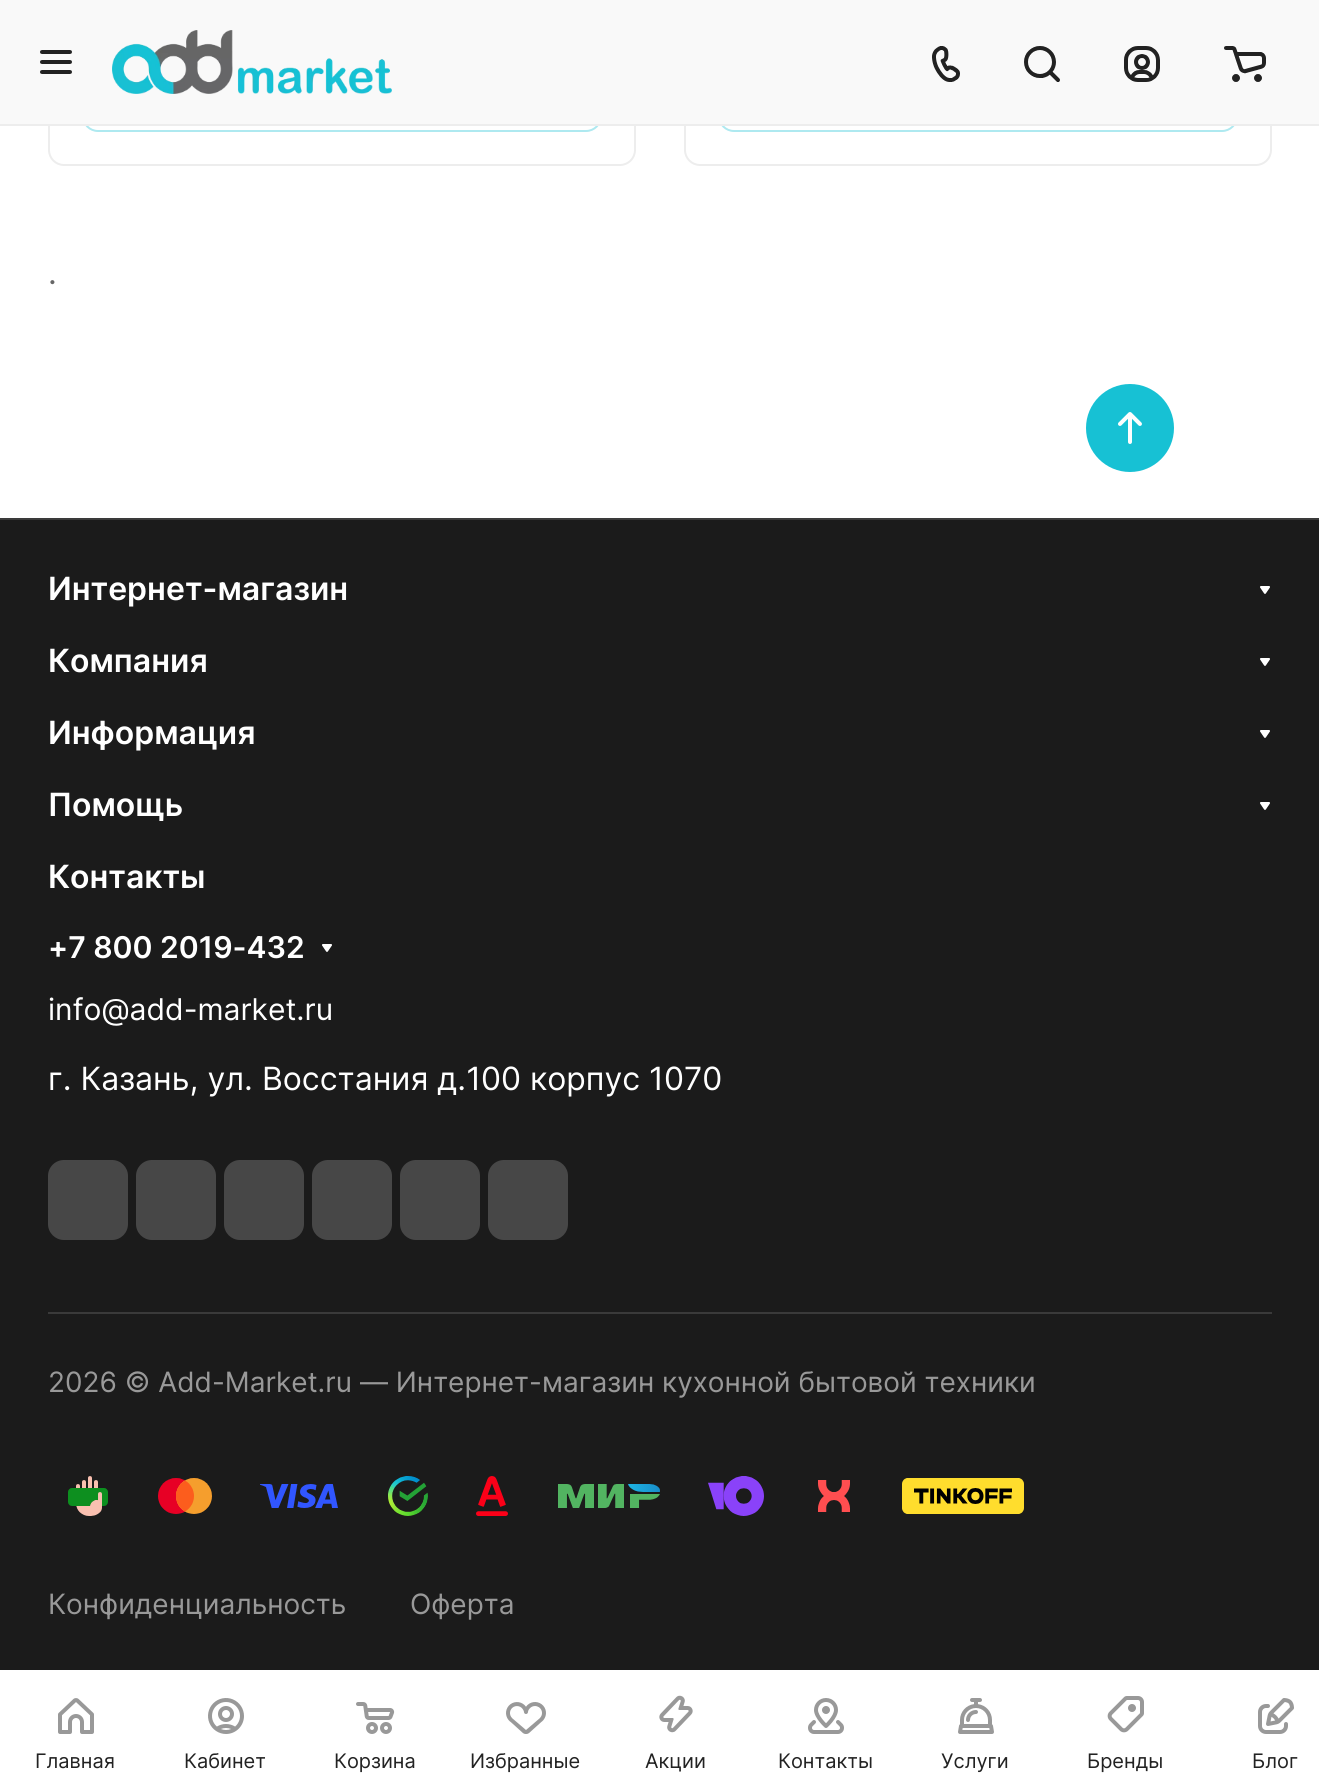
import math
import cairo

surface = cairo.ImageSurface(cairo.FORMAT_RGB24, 1319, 1791)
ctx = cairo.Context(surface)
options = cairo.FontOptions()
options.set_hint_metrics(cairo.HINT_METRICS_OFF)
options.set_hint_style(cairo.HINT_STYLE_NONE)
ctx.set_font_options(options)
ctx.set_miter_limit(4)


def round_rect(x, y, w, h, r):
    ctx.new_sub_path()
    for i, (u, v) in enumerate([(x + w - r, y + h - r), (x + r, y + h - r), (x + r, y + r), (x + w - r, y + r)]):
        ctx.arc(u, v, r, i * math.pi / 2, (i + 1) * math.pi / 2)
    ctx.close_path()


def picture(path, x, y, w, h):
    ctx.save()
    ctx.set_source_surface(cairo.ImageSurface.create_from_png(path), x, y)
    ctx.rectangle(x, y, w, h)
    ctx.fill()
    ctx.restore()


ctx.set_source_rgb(1, 1, 1)
ctx.paint()
round_rect(49, -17, 586, 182, 15)
ctx.set_source_rgb(0.929, 0.929, 0.929)
ctx.stroke()
round_rect(83, 63, 518, 68, 15)
ctx.set_source_rgb(0.682, 0.914, 0.941)
ctx.stroke()
round_rect(685, -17, 586, 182, 15)
ctx.set_source_rgb(0.929, 0.929, 0.929)
ctx.stroke()
round_rect(719, 63, 518, 68, 15)
ctx.set_source_rgb(0.682, 0.914, 0.941)
ctx.stroke()
ctx.set_source_rgb(0.929, 0.929, 0.929)
ctx.rectangle(0, 124, 1319, 2)
ctx.fill()
ctx.set_source_rgb(0.973, 0.973, 0.973)
ctx.rectangle(0, 0, 1319, 124)
ctx.fill()
picture("img1.png", 40, 50, 32, 24)
picture("img2.png", 112, 30, 280, 64)
picture("img3.png", 932, 46, 28, 36)
picture("img4.png", 1024, 46, 36, 36)
picture("img5.png", 1124, 46, 36, 36)
picture("img6.png", 1224, 46, 42, 36)
ctx.select_font_face("Inter")
ctx.set_font_size(32)
ctx.set_source_rgb(0.4, 0.4, 0.4)
ctx.move_to(48, 284)
ctx.show_text(".")
ctx.set_source_rgb(0.09, 0.757, 0.831)
ctx.new_path()
ctx.arc(1130, 428, 44, 0, 2 * math.pi)
ctx.fill()
picture("img7.png", 1118, 412, 24, 32)
ctx.set_source_rgb(0.106, 0.106, 0.106)
ctx.rectangle(0, 520, 1319, 1150)
ctx.fill()
ctx.set_source_rgb(0.227, 0.227, 0.227)
ctx.rectangle(0, 518, 1319, 2)
ctx.fill()
ctx.select_font_face("Inter SemiBold")
ctx.set_source_rgb(1, 1, 1)
ctx.move_to(48, 600)
ctx.show_text("Интернет-магазин")
picture("img8.png", 1260, 586, 10, 8)
ctx.move_to(48, 672)
ctx.show_text("Компания")
picture("img8.png", 1260, 658, 10, 8)
ctx.move_to(48, 744)
ctx.show_text("Информация")
picture("img8.png", 1260, 730, 10, 8)
ctx.move_to(48, 816)
ctx.show_text("Помощь")
picture("img8.png", 1260, 802, 10, 8)
ctx.move_to(48, 888)
ctx.show_text("Контакты")
ctx.set_font_size(30)
ctx.move_to(48, 958)
ctx.show_text("+7 800 2019-432")
picture("img8.png", 322, 944, 10, 8)
ctx.select_font_face("Inter")
ctx.move_to(48, 1020)
ctx.show_text("info@add-market.ru")
ctx.set_font_size(32)
ctx.move_to(48, 1090)
ctx.show_text("г. Казань, ул. Восстания д.100 корпус 1070")
ctx.set_source_rgb(0.278, 0.278, 0.278)
round_rect(48, 1160, 80, 80, 16)
ctx.fill()
round_rect(136, 1160, 80, 80, 16)
ctx.fill()
round_rect(224, 1160, 80, 80, 16)
ctx.fill()
round_rect(312, 1160, 80, 80, 16)
ctx.fill()
round_rect(400, 1160, 80, 80, 16)
ctx.fill()
round_rect(488, 1160, 80, 80, 16)
ctx.fill()
ctx.set_source_rgb(0.227, 0.227, 0.227)
ctx.rectangle(48, 1312, 1224, 2)
ctx.fill()
ctx.set_font_size(28)
ctx.set_source_rgb(0.6, 0.6, 0.6)
ctx.move_to(48, 1392)
ctx.show_text("2026 © Add-Market.ru — Интернет-магазин кухонной бытовой техники")
picture("img9.png", 68, 1476, 40, 40)
picture("img10.png", 158, 1478, 54, 36)
picture("img11.png", 260, 1484, 78, 24)
picture("img12.png", 388, 1476, 40, 40)
picture("img13.png", 476, 1476, 32, 40)
picture("img14.png", 558, 1484, 102, 24)
picture("img15.png", 708, 1476, 56, 40)
picture("img16.png", 818, 1480, 32, 32)
picture("img17.png", 902, 1478, 122, 36)
ctx.move_to(48, 1614)
ctx.show_text("Конфиденциальность")
ctx.move_to(410, 1614)
ctx.show_text("Оферта")
picture("img18.png", 58, 1698, 36, 36)
ctx.set_font_size(20)
ctx.set_source_rgb(0.133, 0.133, 0.133)
ctx.move_to(35, 1768)
ctx.show_text("Главная")
picture("img19.png", 208, 1698, 36, 36)
ctx.move_to(184, 1768)
ctx.show_text("Кабинет")
picture("img20.png", 356, 1702, 39, 32)
ctx.move_to(334, 1768)
ctx.show_text("Корзина")
picture("img21.png", 506, 1702, 40, 32)
ctx.move_to(470, 1768)
ctx.show_text("Избранные")
picture("img22.png", 659, 1695, 34, 38)
ctx.move_to(645, 1768)
ctx.show_text("Акции")
picture("img23.png", 808, 1698, 36, 36)
ctx.move_to(778, 1768)
ctx.show_text("Контакты")
picture("img24.png", 958, 1698, 36, 36)
ctx.move_to(941, 1768)
ctx.show_text("Услуги")
picture("img25.png", 1107, 1696, 37, 37)
ctx.move_to(1087, 1768)
ctx.show_text("Бренды")
picture("img26.png", 1258, 1698, 36, 36)
ctx.move_to(1252, 1768)
ctx.show_text("Блог")
surface.write_to_png("page.png")
